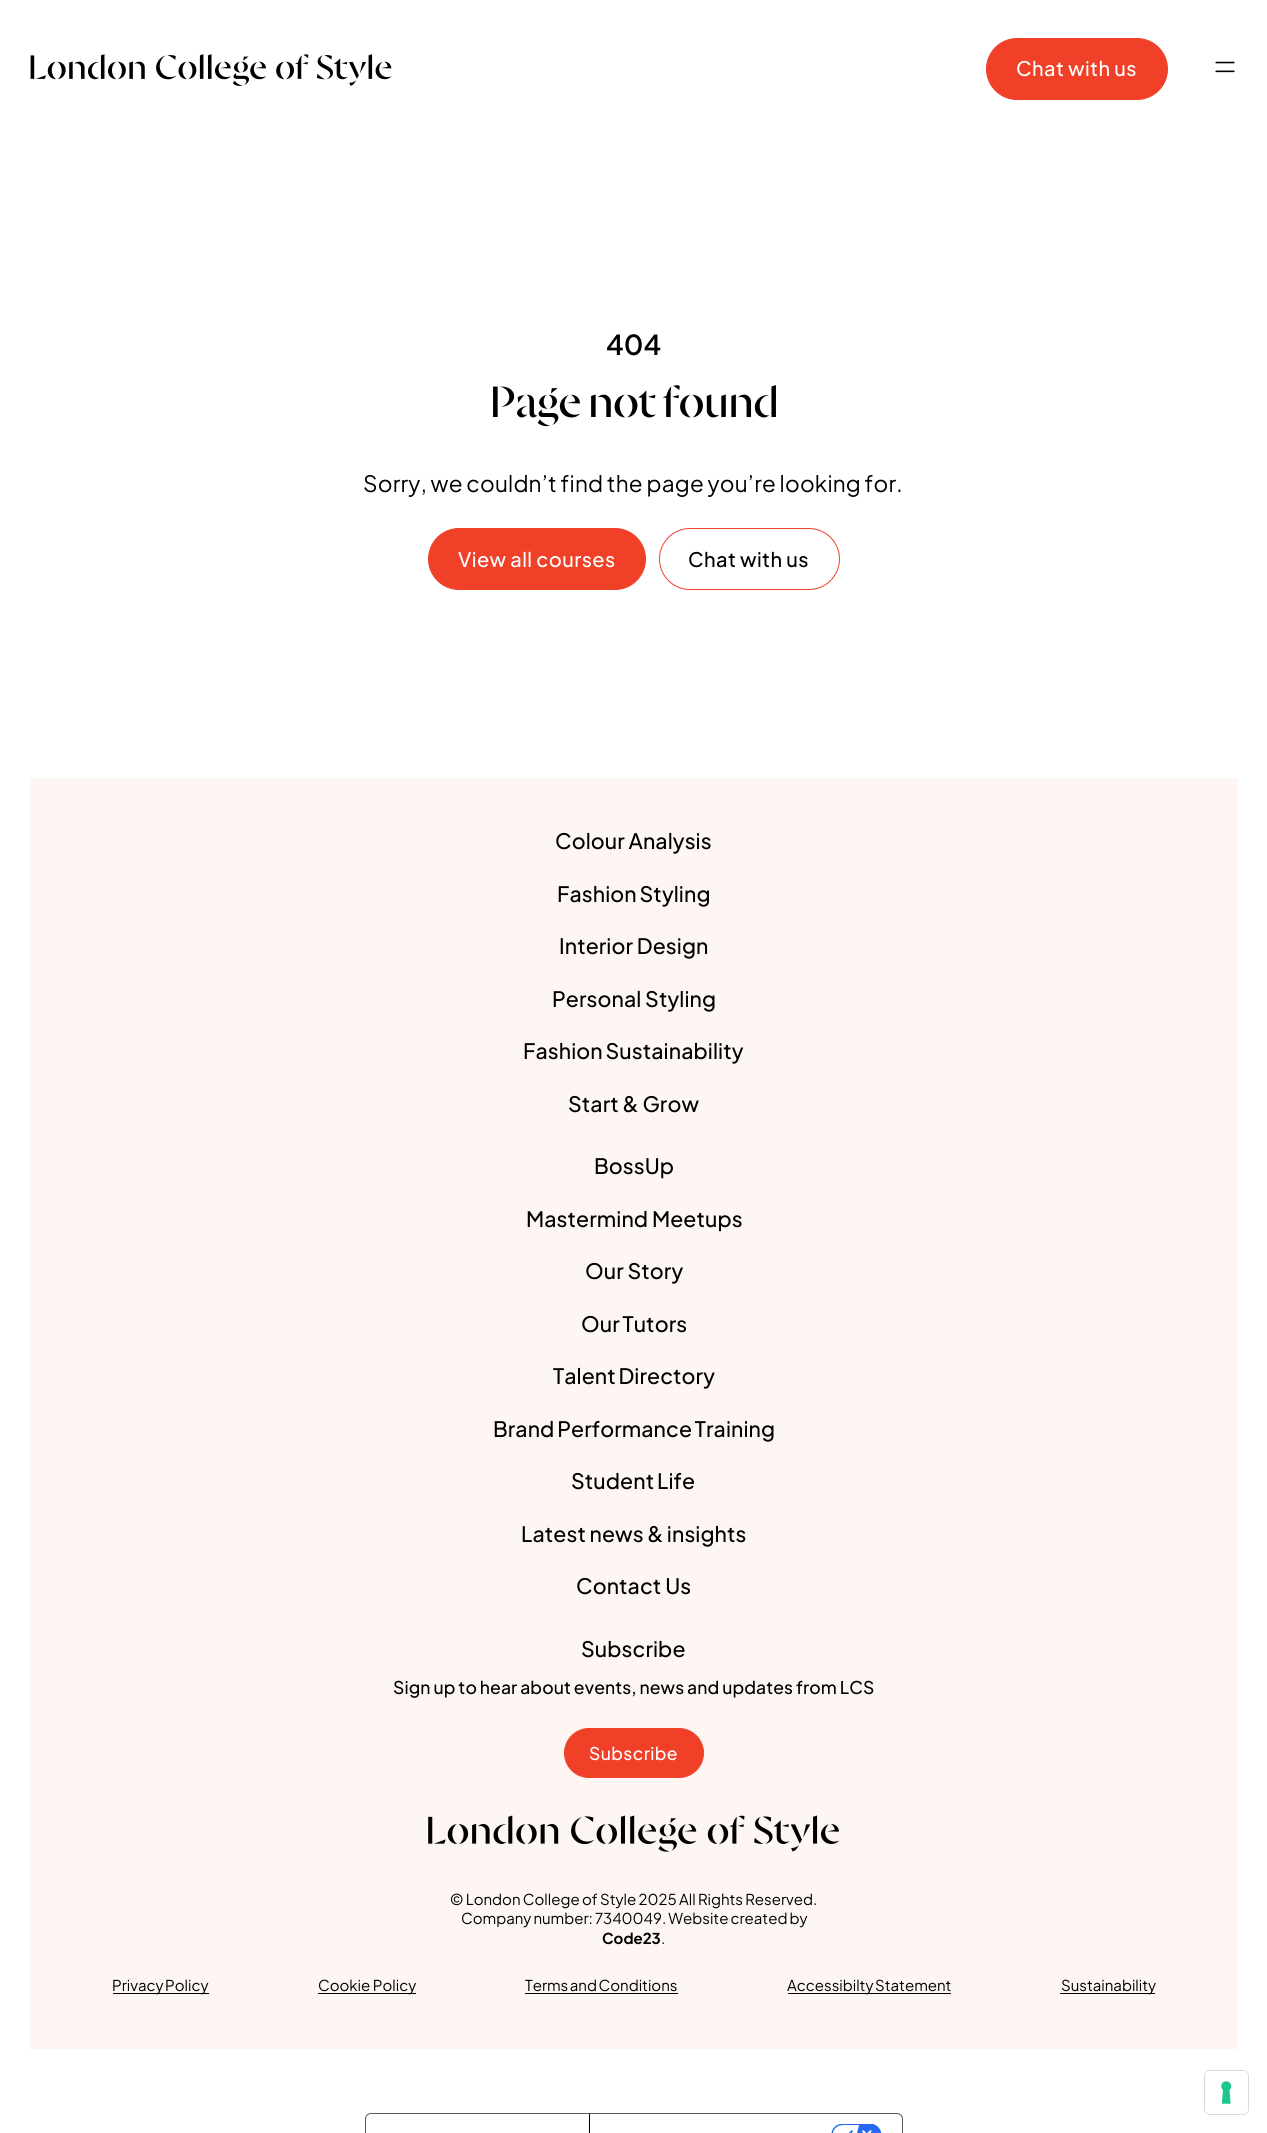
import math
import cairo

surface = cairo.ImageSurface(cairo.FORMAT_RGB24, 1267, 2133)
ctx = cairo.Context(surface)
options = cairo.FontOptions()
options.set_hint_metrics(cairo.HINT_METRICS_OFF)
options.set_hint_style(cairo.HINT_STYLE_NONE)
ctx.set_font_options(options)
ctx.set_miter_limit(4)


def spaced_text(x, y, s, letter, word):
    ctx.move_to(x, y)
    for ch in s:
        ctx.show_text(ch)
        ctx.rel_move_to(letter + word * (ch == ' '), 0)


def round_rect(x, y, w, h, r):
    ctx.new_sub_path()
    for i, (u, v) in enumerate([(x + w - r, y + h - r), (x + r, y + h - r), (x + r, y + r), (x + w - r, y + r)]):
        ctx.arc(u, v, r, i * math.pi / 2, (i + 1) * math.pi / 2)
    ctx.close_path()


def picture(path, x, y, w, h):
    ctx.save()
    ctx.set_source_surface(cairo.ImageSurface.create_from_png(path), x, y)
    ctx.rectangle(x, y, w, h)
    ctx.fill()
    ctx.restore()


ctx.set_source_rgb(1, 1, 1)
ctx.paint()
picture("img1.png", 30, 54, 362, 32)
ctx.set_source_rgb(0.941, 0.255, 0.157)
round_rect(986.5, 38.5, 181, 61, 30.5)
ctx.fill_preserve()
ctx.set_line_width(1)
ctx.stroke()
ctx.select_font_face("Plus Jakarta Sans Medium")
ctx.set_font_size(20)
ctx.set_source_rgb(1, 1, 1)
spaced_text(1016, 76, "Chat with us", 0.4, 0)
picture("img2.png", 1215, 61, 20, 12)
ctx.select_font_face("Plus Jakarta Sans SemiBold")
ctx.set_font_size(27.5)
ctx.set_source_rgb(0, 0, 0)
ctx.move_to(606, 355)
ctx.show_text("404")
ctx.select_font_face("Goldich")
ctx.set_font_size(45)
spaced_text(489, 417, "Page not found", -1.25, -1)
ctx.select_font_face("Plus Jakarta Sans")
ctx.set_font_size(22.5)
spaced_text(363, 492, "Sorry, we couldn’t find the page you’re looking for.", 0.22, -0.5)
ctx.set_source_rgb(0.941, 0.255, 0.157)
round_rect(428.5, 528.5, 217, 61, 30.5)
ctx.fill_preserve()
ctx.stroke()
ctx.select_font_face("Plus Jakarta Sans Medium")
ctx.set_font_size(20)
ctx.set_source_rgb(1, 1, 1)
spaced_text(458, 567, "View all courses", 0.4, 0)
round_rect(659.5, 528.5, 180, 61, 30.5)
ctx.set_source_rgb(0.941, 0.255, 0.157)
ctx.stroke()
ctx.set_source_rgb(0, 0, 0)
spaced_text(688, 567, "Chat with us", 0.4, 0)
ctx.set_source_rgb(0.992, 0.961, 0.949)
ctx.rectangle(30, 778, 1208, 1271)
ctx.fill()
ctx.set_font_size(21.25)
ctx.set_source_rgb(0, 0, 0)
spaced_text(555, 849, "Colour Analysis", 0.1, 0)
spaced_text(557, 902, "Fashion Styling", 0.1, -1)
spaced_text(559, 954, "Interior Design", 0.1, 0)
spaced_text(552, 1007, "Personal Styling", 0.1, 0)
spaced_text(523, 1059, "Fashion Sustainability", 0.1, -1)
spaced_text(568, 1112, "Start & Grow", 0.1, 0)
spaced_text(594, 1174, "BossUp", 0.1, 0)
spaced_text(526, 1227, "Mastermind Meetups", 0.1, 0)
spaced_text(585, 1279, "Our Story", 0.1, 0)
spaced_text(581, 1332, "Our Tutors", 0.1, -1)
spaced_text(553, 1384, "Talent Directory", 0.1, -1)
spaced_text(493, 1437, "Brand Performance Training", 0.1, -1)
spaced_text(571, 1489, "Student Life", 0.1, -1)
spaced_text(521, 1542, "Latest news & insights", 0.1, -0.25)
spaced_text(576, 1594, "Contact Us", 0.1, 0)
spaced_text(581, 1657, "Subscribe", 0.1, 0)
ctx.set_font_size(17.5)
spaced_text(393, 1694, "Sign up to hear about events, news and updates from LCS", 0.1, -0.25)
ctx.set_source_rgb(0.941, 0.255, 0.157)
round_rect(564.5, 1728.5, 139, 49, 24.5)
ctx.fill_preserve()
ctx.stroke()
ctx.set_source_rgb(1, 1, 1)
spaced_text(589, 1760, "Subscribe", 0.4, 0)
picture("img3.png", 428, 1815, 411, 37)
ctx.select_font_face("Plus Jakarta Sans")
ctx.set_font_size(15)
ctx.set_source_rgb(0, 0, 0)
spaced_text(450, 1905, "© London College of Style 2025 All Rights Reserved.", 0, -0.25)
spaced_text(461, 1924, "Company number: 7340049. Website created by", 0, -0.5)
ctx.select_font_face("Plus Jakarta Sans", cairo.FONT_SLANT_NORMAL, cairo.FONT_WEIGHT_BOLD)
ctx.move_to(602, 1944)
ctx.show_text("Code23")
ctx.select_font_face("Plus Jakarta Sans")
ctx.move_to(661, 1944)
ctx.show_text(".")
ctx.rectangle(113, 1993, 96, 1)
ctx.fill()
spaced_text(112, 1991, "Privacy Policy", 0, -1)
ctx.rectangle(318, 1993, 98, 1)
ctx.fill()
ctx.move_to(318, 1991)
ctx.show_text("Cookie Policy")
spaced_text(525, 1991, "Terms and Conditions", 0, -1)
ctx.rectangle(525, 1993, 153, 1)
ctx.fill()
ctx.rectangle(788, 1993, 163, 1)
ctx.fill()
spaced_text(787, 1991, "Accessibilty Statement", 0, -1)
ctx.rectangle(1060, 1993, 95, 1)
ctx.fill()
ctx.move_to(1061, 1991)
ctx.show_text("Sustainability")
round_rect(1204.5, 2070.5, 44, 44, 5.5)
ctx.set_source_rgb(0.851, 0.851, 0.851)
ctx.stroke()
ctx.set_source_rgb(1, 1, 1)
round_rect(1205, 2071, 43, 43, 5)
ctx.fill()
picture("img4.png", 1221, 2081, 11, 23)
round_rect(365.5, 2113.5, 537, 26, 5.5)
ctx.set_source_rgb(0.349, 0.349, 0.349)
ctx.stroke()
ctx.set_source_rgb(0, 0, 0)
ctx.rectangle(589, 2114, 1, 19)
ctx.fill()
picture("img5.png", 831, 2124, 50, 9)
surface.write_to_png("page.png")
